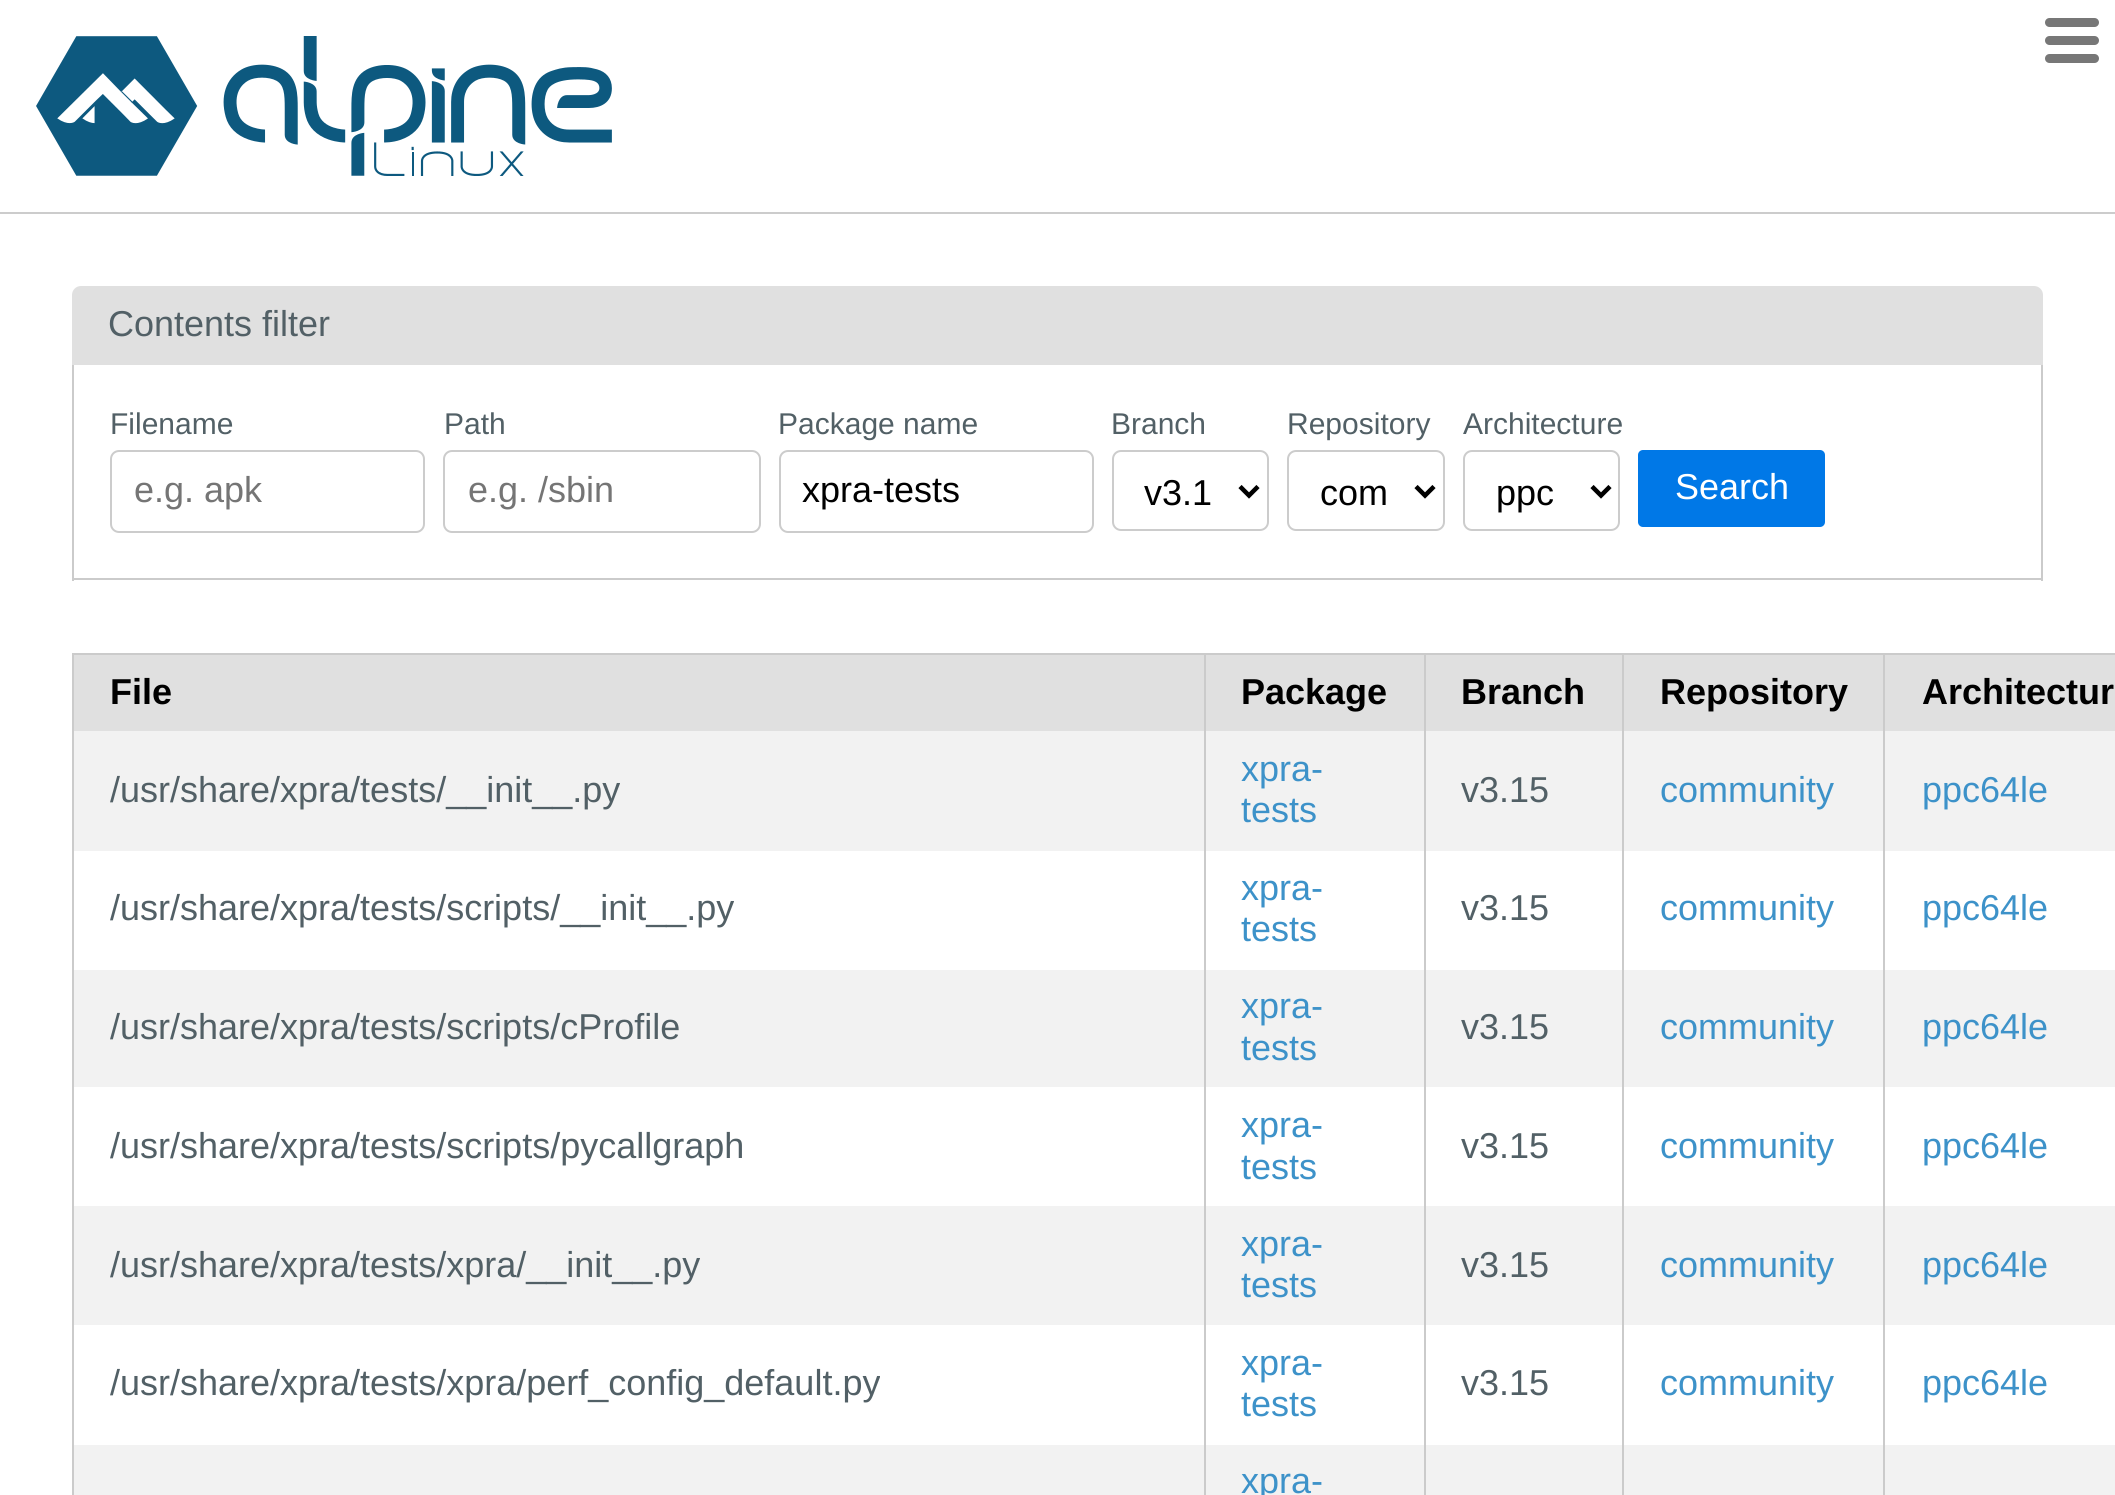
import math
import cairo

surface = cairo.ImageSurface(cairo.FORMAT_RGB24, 2115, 1495)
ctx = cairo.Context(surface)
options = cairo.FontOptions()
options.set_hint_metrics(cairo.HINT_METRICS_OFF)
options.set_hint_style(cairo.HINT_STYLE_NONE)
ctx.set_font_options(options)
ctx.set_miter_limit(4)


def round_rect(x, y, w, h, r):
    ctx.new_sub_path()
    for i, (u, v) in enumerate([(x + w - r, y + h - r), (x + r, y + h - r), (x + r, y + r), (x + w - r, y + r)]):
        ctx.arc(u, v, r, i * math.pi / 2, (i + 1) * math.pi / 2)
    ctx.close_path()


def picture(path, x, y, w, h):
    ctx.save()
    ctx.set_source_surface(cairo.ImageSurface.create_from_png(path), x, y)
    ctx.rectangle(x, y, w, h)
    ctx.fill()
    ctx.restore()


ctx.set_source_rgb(1, 1, 1)
ctx.paint()
ctx.set_source_rgb(0.8, 0.8, 0.8)
ctx.rectangle(0, 212, 2115, 2)
ctx.fill()
picture("img1.png", 36, 36, 576, 140)
ctx.set_source_rgb(0.467, 0.467, 0.467)
round_rect(2045, 18, 54, 9, 4.5)
ctx.fill()
round_rect(2045, 36, 54, 9, 4.5)
ctx.fill()
round_rect(2045, 54, 54, 9, 4.5)
ctx.fill()
ctx.set_source_rgb(0.878, 0.878, 0.878)
ctx.new_path()
ctx.move_to(81, 286)
ctx.line_to(2034, 286)
ctx.curve_to(2039, 286, 2043, 290, 2043, 295)
ctx.line_to(2043, 365)
ctx.line_to(72, 365)
ctx.line_to(72, 295)
ctx.curve_to(72, 290, 76, 286, 81, 286)
ctx.close_path()
ctx.fill()
ctx.select_font_face("Liberation Sans")
ctx.set_font_size(36)
ctx.set_source_rgb(0.322, 0.376, 0.4)
ctx.move_to(108, 336)
ctx.show_text("Contents filter")
ctx.set_source_rgb(0.796, 0.796, 0.796)
ctx.rectangle(2041, 365, 2, 216)
ctx.fill()
ctx.rectangle(72, 578, 1971, 2)
ctx.fill()
ctx.rectangle(72, 365, 2, 216)
ctx.fill()
ctx.set_font_size(30)
ctx.set_source_rgb(0.322, 0.376, 0.4)
ctx.move_to(110, 434)
ctx.show_text("Filename")
round_rect(111, 451, 313, 81, 8)
ctx.set_source_rgb(0.8, 0.8, 0.8)
ctx.stroke()
ctx.set_font_size(36)
ctx.set_source_rgb(0.459, 0.459, 0.459)
ctx.move_to(134, 502)
ctx.show_text("e.g. apk")
ctx.set_font_size(30)
ctx.set_source_rgb(0.322, 0.376, 0.4)
ctx.move_to(444, 434)
ctx.show_text("Path")
round_rect(444, 451, 316, 81, 8)
ctx.set_source_rgb(0.8, 0.8, 0.8)
ctx.stroke()
ctx.set_font_size(36)
ctx.set_source_rgb(0.459, 0.459, 0.459)
ctx.move_to(468, 502)
ctx.show_text("e.g. /sbin")
ctx.set_font_size(30)
ctx.set_source_rgb(0.322, 0.376, 0.4)
ctx.move_to(778, 434)
ctx.show_text("Package name")
round_rect(780, 451, 313, 81, 8)
ctx.set_source_rgb(0.8, 0.8, 0.8)
ctx.stroke()
ctx.set_font_size(36)
ctx.set_source_rgb(0, 0, 0)
ctx.move_to(802, 502)
ctx.show_text("xpra-tests")
ctx.set_font_size(30)
ctx.set_source_rgb(0.322, 0.376, 0.4)
ctx.move_to(1111, 434)
ctx.show_text("Branch")
round_rect(1113, 451, 155, 79, 8)
ctx.set_source_rgb(0.8, 0.8, 0.8)
ctx.stroke()
ctx.new_path()
ctx.move_to(1240, 486.5)
ctx.line_to(1249, 495.5)
ctx.line_to(1258, 486.5)
ctx.set_source_rgb(0, 0, 0)
ctx.set_line_width(4.5)
ctx.stroke()
ctx.set_font_size(36)
ctx.move_to(1144, 505)
ctx.show_text("v3.1")
ctx.set_font_size(30)
ctx.set_source_rgb(0.322, 0.376, 0.4)
ctx.move_to(1287, 434)
ctx.show_text("Repository")
round_rect(1288, 451, 156, 79, 8)
ctx.set_source_rgb(0.8, 0.8, 0.8)
ctx.set_line_width(2)
ctx.stroke()
ctx.new_path()
ctx.move_to(1416, 486.5)
ctx.line_to(1425, 495.5)
ctx.line_to(1434, 486.5)
ctx.set_source_rgb(0, 0, 0)
ctx.set_line_width(4.5)
ctx.stroke()
ctx.set_font_size(36)
ctx.move_to(1320, 505)
ctx.show_text("com")
ctx.set_font_size(30)
ctx.set_source_rgb(0.322, 0.376, 0.4)
ctx.move_to(1463, 434)
ctx.show_text("Architecture")
round_rect(1464, 451, 155, 79, 8)
ctx.set_source_rgb(0.8, 0.8, 0.8)
ctx.set_line_width(2)
ctx.stroke()
ctx.new_path()
ctx.move_to(1592, 486.5)
ctx.line_to(1601, 495.5)
ctx.line_to(1610, 486.5)
ctx.set_source_rgb(0, 0, 0)
ctx.set_line_width(4.5)
ctx.stroke()
ctx.set_font_size(36)
ctx.move_to(1496, 505)
ctx.show_text("ppc")
ctx.set_source_rgb(0, 0.471, 0.906)
round_rect(1638, 450, 187, 77, 5)
ctx.fill()
ctx.set_source_rgb(1, 1, 1)
ctx.move_to(1675, 499)
ctx.show_text("Search")
ctx.set_source_rgb(0.796, 0.796, 0.796)
ctx.rectangle(72, 653, 2043, 2)
ctx.fill()
ctx.rectangle(72, 653, 2, 842)
ctx.fill()
ctx.set_source_rgb(0.878, 0.878, 0.878)
ctx.rectangle(74, 655, 2041, 76)
ctx.fill()
ctx.select_font_face("Liberation Sans", cairo.FONT_SLANT_NORMAL, cairo.FONT_WEIGHT_BOLD)
ctx.set_source_rgb(0, 0, 0)
ctx.move_to(110, 704)
ctx.show_text("File")
ctx.move_to(1241, 704)
ctx.show_text("Package")
ctx.move_to(1461, 704)
ctx.show_text("Branch")
ctx.move_to(1660, 704)
ctx.show_text("Repository")
ctx.move_to(1922, 704)
ctx.show_text("Architectur")
ctx.set_source_rgb(0.949, 0.949, 0.949)
ctx.rectangle(74, 731, 1130, 120)
ctx.fill()
ctx.select_font_face("Liberation Sans")
ctx.set_source_rgb(0.322, 0.376, 0.4)
ctx.move_to(110, 802)
ctx.show_text("/usr/share/xpra/tests/__init__.py")
ctx.set_source_rgb(0.949, 0.949, 0.949)
ctx.rectangle(1206, 731, 218, 120)
ctx.fill()
ctx.set_source_rgb(0.239, 0.573, 0.788)
ctx.move_to(1241, 781)
ctx.show_text("xpra-")
ctx.move_to(1241, 822)
ctx.show_text("tests")
ctx.set_source_rgb(0.949, 0.949, 0.949)
ctx.rectangle(1426, 731, 196, 120)
ctx.fill()
ctx.set_source_rgb(0.322, 0.376, 0.4)
ctx.move_to(1461, 802)
ctx.show_text("v3.15")
ctx.set_source_rgb(0.949, 0.949, 0.949)
ctx.rectangle(1624, 731, 491, 120)
ctx.fill()
ctx.set_source_rgb(0.239, 0.573, 0.788)
ctx.move_to(1660, 802)
ctx.show_text("community")
ctx.move_to(1922, 802)
ctx.show_text("ppc64le")
ctx.set_source_rgb(0.322, 0.376, 0.4)
ctx.move_to(110, 920)
ctx.show_text("/usr/share/xpra/tests/scripts/__init__.py")
ctx.set_source_rgb(0.239, 0.573, 0.788)
ctx.move_to(1241, 900)
ctx.show_text("xpra-")
ctx.move_to(1241, 941)
ctx.show_text("tests")
ctx.set_source_rgb(0.322, 0.376, 0.4)
ctx.move_to(1461, 920)
ctx.show_text("v3.15")
ctx.set_source_rgb(0.239, 0.573, 0.788)
ctx.move_to(1660, 920)
ctx.show_text("community")
ctx.move_to(1922, 920)
ctx.show_text("ppc64le")
ctx.set_source_rgb(0.949, 0.949, 0.949)
ctx.rectangle(74, 970, 1130, 117)
ctx.fill()
ctx.set_source_rgb(0.322, 0.376, 0.4)
ctx.move_to(110, 1039)
ctx.show_text("/usr/share/xpra/tests/scripts/cProfile")
ctx.set_source_rgb(0.949, 0.949, 0.949)
ctx.rectangle(1206, 970, 218, 117)
ctx.fill()
ctx.set_source_rgb(0.239, 0.573, 0.788)
ctx.move_to(1241, 1018)
ctx.show_text("xpra-")
ctx.move_to(1241, 1060)
ctx.show_text("tests")
ctx.set_source_rgb(0.949, 0.949, 0.949)
ctx.rectangle(1426, 970, 196, 117)
ctx.fill()
ctx.set_source_rgb(0.322, 0.376, 0.4)
ctx.move_to(1461, 1039)
ctx.show_text("v3.15")
ctx.set_source_rgb(0.949, 0.949, 0.949)
ctx.rectangle(1624, 970, 491, 117)
ctx.fill()
ctx.set_source_rgb(0.239, 0.573, 0.788)
ctx.move_to(1660, 1039)
ctx.show_text("community")
ctx.move_to(1922, 1039)
ctx.show_text("ppc64le")
ctx.set_source_rgb(0.322, 0.376, 0.4)
ctx.move_to(110, 1158)
ctx.show_text("/usr/share/xpra/tests/scripts/pycallgraph")
ctx.set_source_rgb(0.239, 0.573, 0.788)
ctx.move_to(1241, 1137)
ctx.show_text("xpra-")
ctx.move_to(1241, 1179)
ctx.show_text("tests")
ctx.set_source_rgb(0.322, 0.376, 0.4)
ctx.move_to(1461, 1158)
ctx.show_text("v3.15")
ctx.set_source_rgb(0.239, 0.573, 0.788)
ctx.move_to(1660, 1158)
ctx.show_text("community")
ctx.move_to(1922, 1158)
ctx.show_text("ppc64le")
ctx.set_source_rgb(0.949, 0.949, 0.949)
ctx.rectangle(74, 1206, 1130, 119)
ctx.fill()
ctx.set_source_rgb(0.322, 0.376, 0.4)
ctx.move_to(110, 1277)
ctx.show_text("/usr/share/xpra/tests/xpra/__init__.py")
ctx.set_source_rgb(0.949, 0.949, 0.949)
ctx.rectangle(1206, 1206, 218, 119)
ctx.fill()
ctx.set_source_rgb(0.239, 0.573, 0.788)
ctx.move_to(1241, 1256)
ctx.show_text("xpra-")
ctx.move_to(1241, 1297)
ctx.show_text("tests")
ctx.set_source_rgb(0.949, 0.949, 0.949)
ctx.rectangle(1426, 1206, 196, 119)
ctx.fill()
ctx.set_source_rgb(0.322, 0.376, 0.4)
ctx.move_to(1461, 1277)
ctx.show_text("v3.15")
ctx.set_source_rgb(0.949, 0.949, 0.949)
ctx.rectangle(1624, 1206, 491, 119)
ctx.fill()
ctx.set_source_rgb(0.239, 0.573, 0.788)
ctx.move_to(1660, 1277)
ctx.show_text("community")
ctx.move_to(1922, 1277)
ctx.show_text("ppc64le")
ctx.set_source_rgb(0.322, 0.376, 0.4)
ctx.move_to(110, 1395)
ctx.show_text("/usr/share/xpra/tests/xpra/perf_config_default.py")
ctx.set_source_rgb(0.239, 0.573, 0.788)
ctx.move_to(1241, 1375)
ctx.show_text("xpra-")
ctx.move_to(1241, 1416)
ctx.show_text("tests")
ctx.set_source_rgb(0.322, 0.376, 0.4)
ctx.move_to(1461, 1395)
ctx.show_text("v3.15")
ctx.set_source_rgb(0.239, 0.573, 0.788)
ctx.move_to(1660, 1395)
ctx.show_text("community")
ctx.move_to(1922, 1395)
ctx.show_text("ppc64le")
ctx.set_source_rgb(0.949, 0.949, 0.949)
ctx.rectangle(1426, 1445, 196, 50)
ctx.fill()
ctx.set_source_rgb(0.796, 0.796, 0.796)
ctx.rectangle(1424, 653, 2, 842)
ctx.fill()
ctx.set_source_rgb(0.949, 0.949, 0.949)
ctx.rectangle(1624, 1445, 491, 50)
ctx.fill()
ctx.set_source_rgb(0.796, 0.796, 0.796)
ctx.rectangle(1622, 653, 2, 842)
ctx.fill()
ctx.set_source_rgb(0.949, 0.949, 0.949)
ctx.rectangle(74, 1445, 1130, 50)
ctx.fill()
ctx.rectangle(1206, 1445, 218, 50)
ctx.fill()
ctx.set_source_rgb(0.796, 0.796, 0.796)
ctx.rectangle(1204, 653, 2, 842)
ctx.fill()
ctx.set_source_rgb(0.239, 0.573, 0.788)
ctx.move_to(1241, 1493)
ctx.show_text("xpra-")
ctx.set_source_rgb(0.796, 0.796, 0.796)
ctx.rectangle(1883, 653, 2, 842)
ctx.fill()
surface.write_to_png("page.png")
